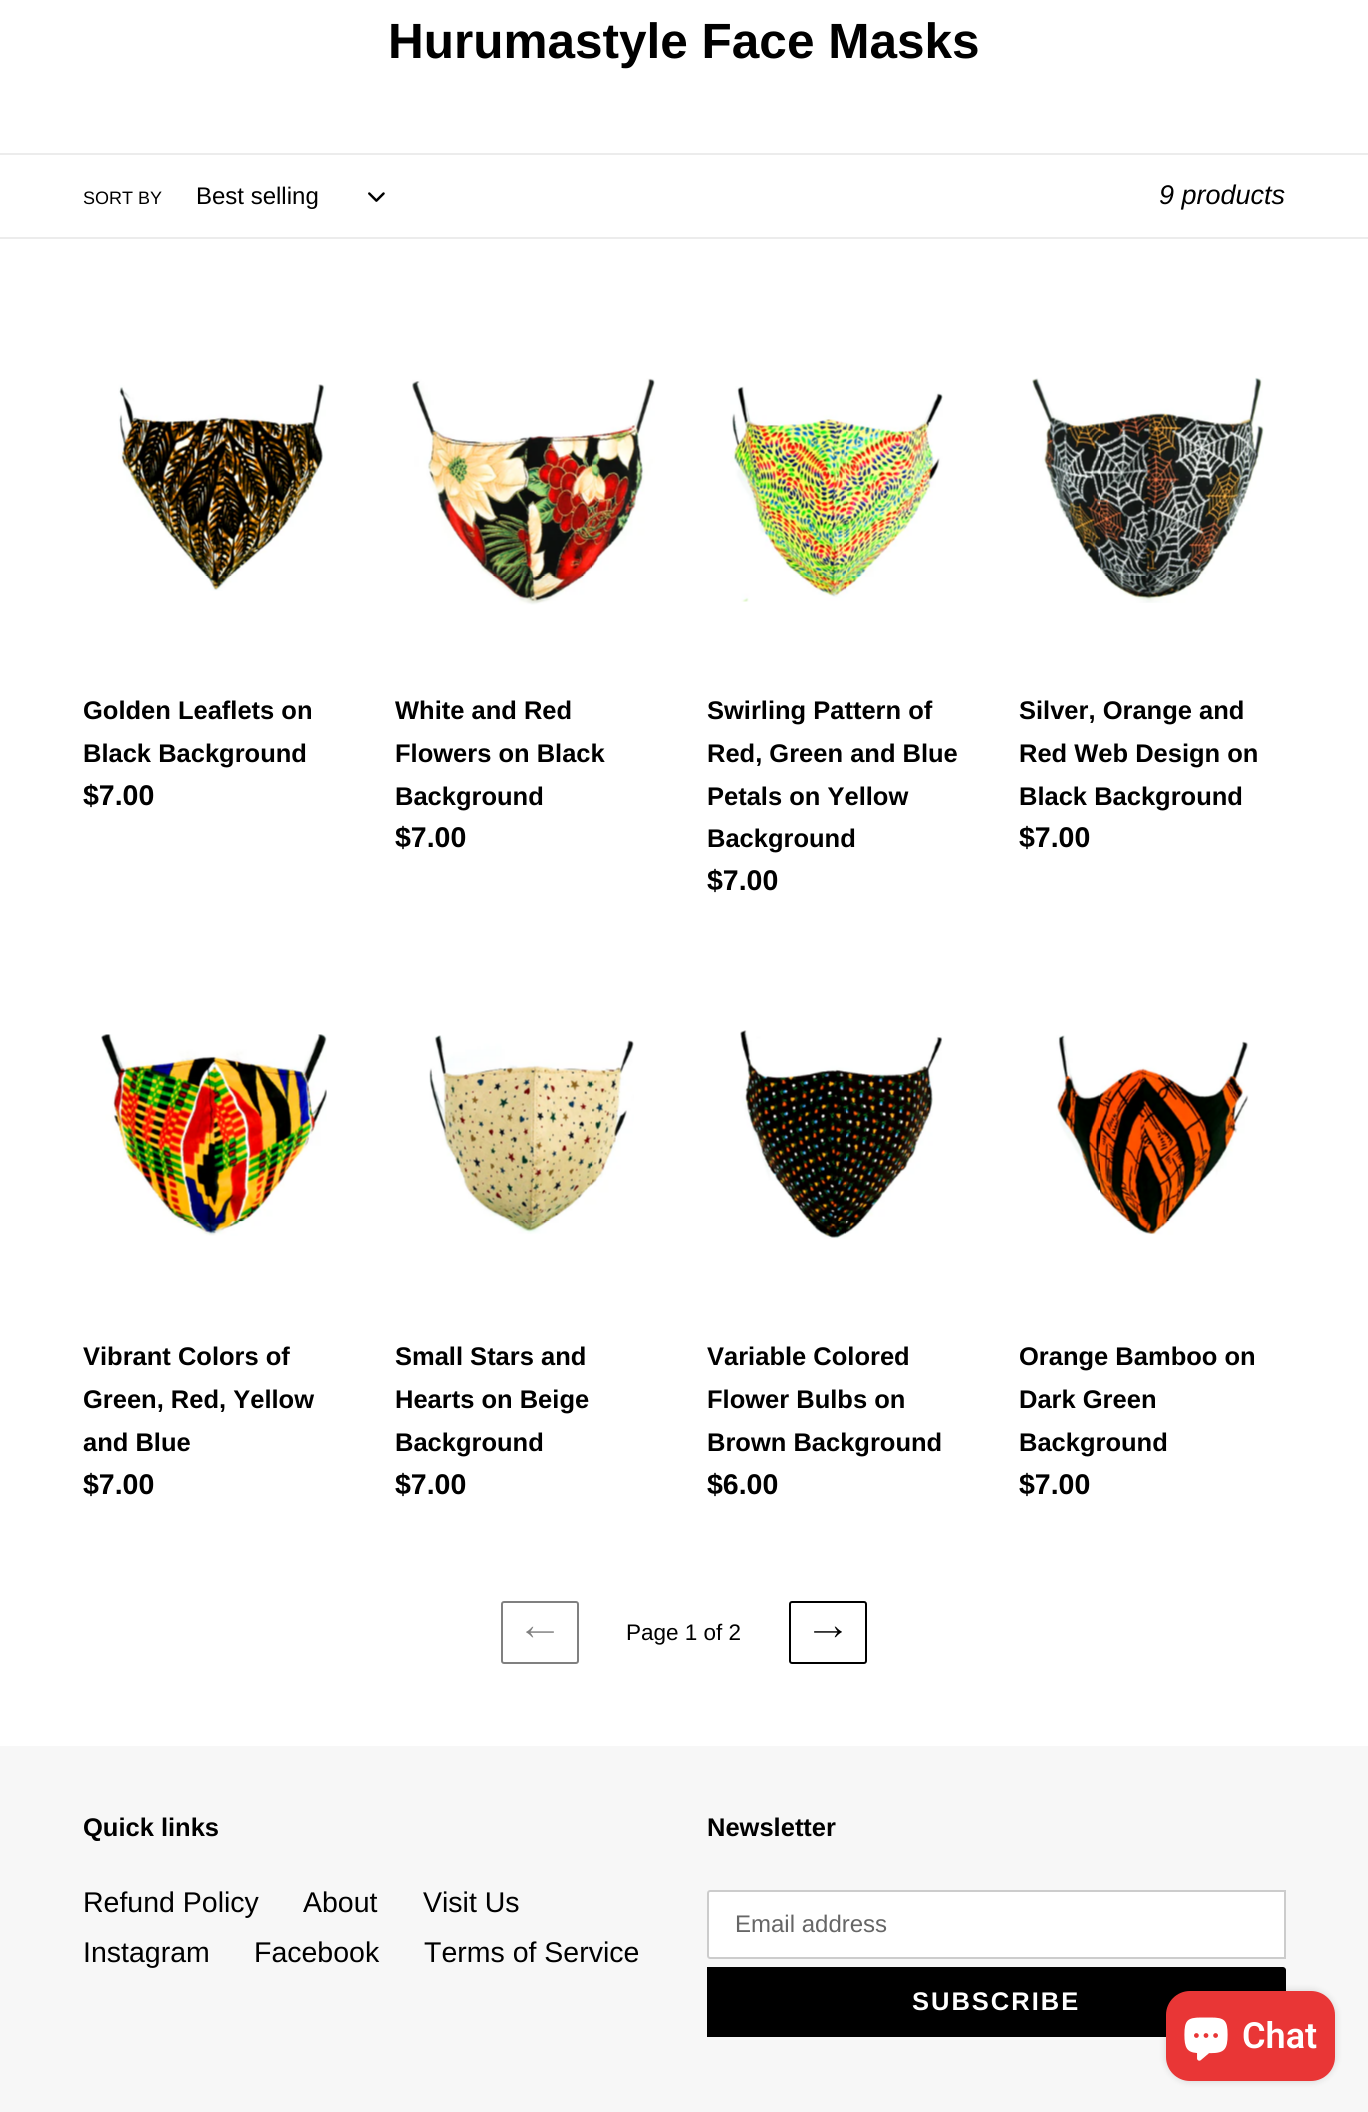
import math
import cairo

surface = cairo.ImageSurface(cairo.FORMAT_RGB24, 1368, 2112)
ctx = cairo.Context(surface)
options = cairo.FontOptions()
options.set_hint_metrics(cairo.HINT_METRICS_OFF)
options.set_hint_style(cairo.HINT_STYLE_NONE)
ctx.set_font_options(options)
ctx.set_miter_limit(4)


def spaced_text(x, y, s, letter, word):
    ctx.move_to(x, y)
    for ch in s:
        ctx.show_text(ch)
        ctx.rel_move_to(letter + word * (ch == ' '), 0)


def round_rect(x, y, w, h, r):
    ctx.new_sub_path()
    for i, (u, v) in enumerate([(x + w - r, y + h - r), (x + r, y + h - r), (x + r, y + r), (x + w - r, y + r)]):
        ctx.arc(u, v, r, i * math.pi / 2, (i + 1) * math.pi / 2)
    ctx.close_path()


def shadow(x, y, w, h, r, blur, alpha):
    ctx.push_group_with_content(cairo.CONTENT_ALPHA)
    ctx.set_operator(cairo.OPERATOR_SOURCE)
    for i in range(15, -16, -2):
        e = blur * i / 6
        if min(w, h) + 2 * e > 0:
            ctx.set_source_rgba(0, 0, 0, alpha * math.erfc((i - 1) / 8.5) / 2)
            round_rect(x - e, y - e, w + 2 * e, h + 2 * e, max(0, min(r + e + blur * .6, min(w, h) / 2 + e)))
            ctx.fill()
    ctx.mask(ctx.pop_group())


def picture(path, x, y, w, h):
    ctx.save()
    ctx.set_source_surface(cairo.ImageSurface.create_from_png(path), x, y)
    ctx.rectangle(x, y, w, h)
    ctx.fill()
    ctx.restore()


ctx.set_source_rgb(1, 1, 1)
ctx.paint()
ctx.select_font_face("Liberation Sans", cairo.FONT_SLANT_NORMAL, cairo.FONT_WEIGHT_BOLD)
ctx.set_font_size(49.5)
ctx.set_source_rgb(0, 0, 0)
ctx.move_to(388, 58)
ctx.show_text("Hurumastyle Face Masks")
ctx.set_source_rgb(0.922, 0.922, 0.922)
ctx.rectangle(0, 153, 1368, 2)
ctx.fill()
ctx.rectangle(0, 237, 1368, 2)
ctx.fill()
ctx.select_font_face("Liberation Sans")
ctx.set_font_size(18)
ctx.set_source_rgb(0, 0, 0)
ctx.move_to(83, 204)
ctx.show_text("SORT BY")
ctx.set_font_size(24)
ctx.move_to(196, 204)
ctx.show_text("Best selling")
picture("img1.png", 368, 192, 17, 10)
ctx.select_font_face("Liberation Sans", cairo.FONT_SLANT_ITALIC)
ctx.set_font_size(27)
ctx.move_to(1159, 204)
ctx.show_text("9 products")
picture("img2.png", 118, 384, 208, 207)
ctx.select_font_face("Liberation Sans", cairo.FONT_SLANT_NORMAL, cairo.FONT_WEIGHT_BOLD)
ctx.set_font_size(25.5)
ctx.move_to(83, 719)
ctx.show_text("Golden Leaflets on")
ctx.move_to(83, 762)
ctx.show_text("Black Background")
ctx.set_font_size(28.5)
ctx.move_to(83, 805)
ctx.show_text("$7.00")
picture("img3.png", 412, 378, 243, 227)
ctx.set_font_size(25.5)
ctx.move_to(395, 719)
ctx.show_text("White and Red")
ctx.move_to(395, 762)
ctx.show_text("Flowers on Black")
ctx.move_to(395, 805)
ctx.show_text("Background")
ctx.set_font_size(28.5)
ctx.move_to(395, 847)
ctx.show_text("$7.00")
picture("img4.png", 730, 386, 213, 216)
ctx.set_font_size(25.5)
ctx.move_to(707, 719)
ctx.show_text("Swirling Pattern of")
ctx.move_to(707, 762)
ctx.show_text("Red, Green and Blue")
ctx.move_to(707, 805)
ctx.show_text("Petals on Yellow")
ctx.move_to(707, 847)
ctx.show_text("Background")
ctx.set_font_size(28.5)
ctx.move_to(707, 890)
ctx.show_text("$7.00")
picture("img5.png", 1032, 377, 232, 226)
ctx.set_font_size(25.5)
ctx.move_to(1019, 719)
ctx.show_text("Silver, Orange and")
ctx.move_to(1019, 762)
ctx.show_text("Red Web Design on")
ctx.move_to(1019, 805)
ctx.show_text("Black Background")
ctx.set_font_size(28.5)
ctx.move_to(1019, 847)
ctx.show_text("$7.00")
picture("img6.png", 101, 1034, 226, 202)
ctx.set_font_size(25.5)
ctx.move_to(83, 1365)
ctx.show_text("Vibrant Colors of")
ctx.move_to(83, 1408)
ctx.show_text("Green, Red, Yellow")
ctx.move_to(83, 1451)
ctx.show_text("and Blue")
ctx.set_font_size(28.5)
ctx.move_to(83, 1494)
ctx.show_text("$7.00")
picture("img7.png", 429, 1035, 205, 199)
ctx.set_font_size(25.5)
ctx.move_to(395, 1365)
ctx.show_text("Small Stars and")
ctx.move_to(395, 1408)
ctx.show_text("Hearts on Beige")
ctx.move_to(395, 1451)
ctx.show_text("Background")
ctx.set_font_size(28.5)
ctx.move_to(395, 1494)
ctx.show_text("$7.00")
picture("img8.png", 740, 1030, 203, 209)
ctx.set_font_size(25.5)
ctx.move_to(707, 1365)
ctx.show_text("Variable Colored")
ctx.move_to(707, 1408)
ctx.show_text("Flower Bulbs on")
ctx.move_to(707, 1451)
ctx.show_text("Brown Background")
ctx.set_font_size(28.5)
ctx.move_to(707, 1494)
ctx.show_text("$6.00")
picture("img9.png", 1056, 1035, 193, 200)
ctx.set_font_size(25.5)
ctx.move_to(1019, 1365)
ctx.show_text("Orange Bamboo on")
ctx.move_to(1019, 1408)
ctx.show_text("Dark Green")
ctx.move_to(1019, 1451)
ctx.show_text("Background")
ctx.set_font_size(28.5)
ctx.move_to(1019, 1494)
ctx.show_text("$7.00")
round_rect(502, 1602, 76, 61, 2)
ctx.set_source_rgb(0.502, 0.502, 0.502)
ctx.stroke()
picture("img10.png", 526, 1626, 28, 12)
ctx.select_font_face("Liberation Sans")
ctx.set_font_size(22.5)
ctx.set_source_rgb(0, 0, 0)
ctx.move_to(626, 1640)
ctx.show_text("Page 1 of 2")
round_rect(790, 1602, 76, 61, 2)
ctx.stroke()
picture("img11.png", 814, 1626, 28, 12)
ctx.set_source_rgb(0.965, 0.965, 0.965)
ctx.rectangle(0, 1746, 1368, 366)
ctx.fill()
ctx.select_font_face("Liberation Sans", cairo.FONT_SLANT_NORMAL, cairo.FONT_WEIGHT_BOLD)
ctx.set_font_size(25.5)
ctx.set_source_rgb(0, 0, 0)
ctx.move_to(83, 1836)
ctx.show_text("Quick links")
ctx.select_font_face("Liberation Sans")
ctx.set_font_size(28.5)
ctx.move_to(83, 1912)
ctx.show_text("Refund Policy")
ctx.move_to(303, 1912)
ctx.show_text("About")
ctx.move_to(423, 1912)
ctx.show_text("Visit Us")
ctx.move_to(83, 1962)
ctx.show_text("Instagram")
ctx.move_to(254, 1962)
ctx.show_text("Facebook")
ctx.move_to(424, 1962)
ctx.show_text("Terms of Service")
ctx.select_font_face("Liberation Sans", cairo.FONT_SLANT_NORMAL, cairo.FONT_WEIGHT_BOLD)
ctx.set_font_size(25.5)
ctx.move_to(707, 1836)
ctx.show_text("Newsletter")
ctx.set_source_rgb(1, 1, 1)
ctx.new_path()
ctx.move_to(710, 1891)
ctx.line_to(1285, 1891)
ctx.line_to(1285, 1958)
ctx.line_to(710, 1958)
ctx.curve_to(709, 1958, 708, 1957, 708, 1956)
ctx.line_to(708, 1893)
ctx.curve_to(708, 1892, 709, 1891, 710, 1891)
ctx.close_path()
ctx.fill_preserve()
ctx.set_source_rgb(0.8, 0.8, 0.8)
ctx.stroke()
ctx.select_font_face("Liberation Sans")
ctx.set_font_size(24)
ctx.set_source_rgb(0.4, 0.4, 0.4)
ctx.move_to(735, 1932)
ctx.show_text("Email address")
ctx.set_source_rgb(0, 0, 0)
ctx.new_path()
ctx.move_to(707, 1967)
ctx.line_to(1283, 1967)
ctx.curve_to(1284.5, 1967, 1286, 1968.5, 1286, 1970)
ctx.line_to(1286, 2034)
ctx.curve_to(1286, 2035.5, 1284.5, 2037, 1283, 2037)
ctx.line_to(707, 2037)
ctx.close_path()
ctx.fill()
ctx.select_font_face("Liberation Sans", cairo.FONT_SLANT_NORMAL, cairo.FONT_WEIGHT_BOLD)
ctx.set_font_size(25.5)
ctx.set_source_rgb(1, 1, 1)
spaced_text(912, 2010, "SUBSCRIBE", 2, 0)
ctx.set_source_rgb(0, 0, 0)
shadow(1166, 1991, 169, 90, 24, 4, 0.15)
ctx.set_source_rgb(0.914, 0.212, 0.212)
round_rect(1166, 1991, 169, 90, 24)
ctx.fill()
picture("img12.png", 1184, 2017, 44, 44)
ctx.select_font_face("Roboto SemiBold")
ctx.set_font_size(36)
ctx.set_source_rgb(1, 1, 1)
ctx.move_to(1242, 2048)
ctx.show_text("Chat")
surface.write_to_png("page.png")
